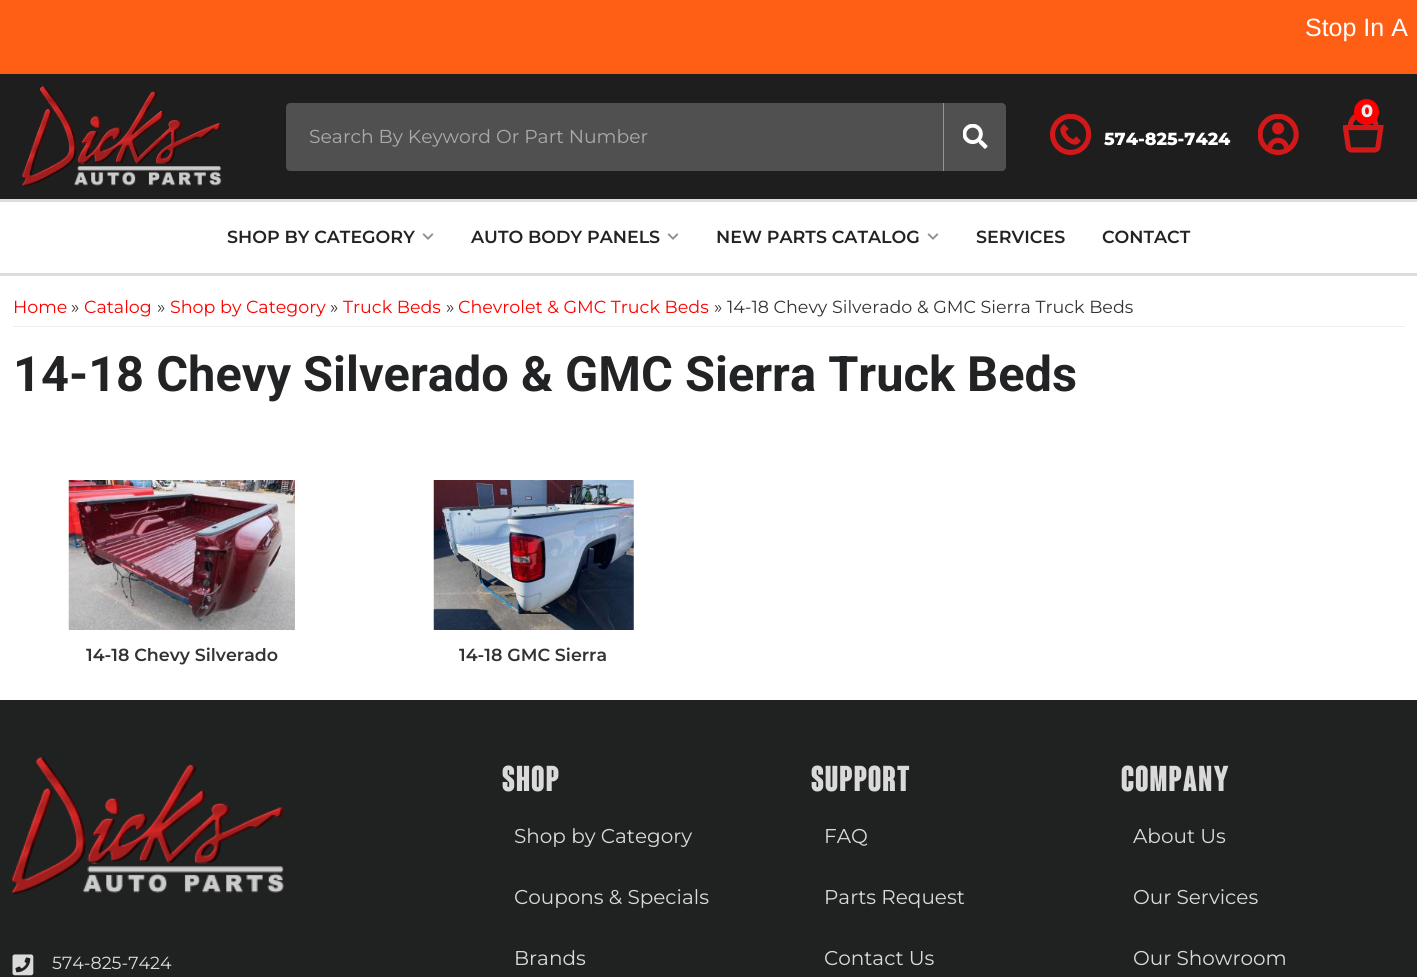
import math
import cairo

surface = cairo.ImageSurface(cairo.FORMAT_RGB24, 1417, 977)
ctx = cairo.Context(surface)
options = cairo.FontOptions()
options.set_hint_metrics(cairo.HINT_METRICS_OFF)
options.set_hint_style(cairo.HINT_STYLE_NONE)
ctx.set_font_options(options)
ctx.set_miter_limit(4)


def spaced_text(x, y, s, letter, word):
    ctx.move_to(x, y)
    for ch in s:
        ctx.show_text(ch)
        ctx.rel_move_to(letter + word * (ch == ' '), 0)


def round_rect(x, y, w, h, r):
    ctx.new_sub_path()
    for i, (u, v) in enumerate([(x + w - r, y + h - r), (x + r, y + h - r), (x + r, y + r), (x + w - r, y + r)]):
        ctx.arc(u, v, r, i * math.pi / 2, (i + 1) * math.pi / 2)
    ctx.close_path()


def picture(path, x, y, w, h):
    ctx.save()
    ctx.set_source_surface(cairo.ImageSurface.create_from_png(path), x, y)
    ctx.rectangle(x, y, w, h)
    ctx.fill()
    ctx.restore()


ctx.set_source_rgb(1, 1, 1)
ctx.paint()
ctx.set_source_rgb(1, 0.373, 0.082)
ctx.rectangle(0, 0, 1417, 74)
ctx.fill()
ctx.select_font_face("Liberation Sans")
ctx.set_font_size(25)
ctx.set_source_rgb(1, 1, 1)
ctx.move_to(1305, 36)
ctx.show_text("Stop In A")
ctx.set_source_rgb(0.118, 0.118, 0.118)
ctx.rectangle(0, 74, 1417, 125)
ctx.fill()
picture("img1.png", 22, 86, 200, 100)
picture("img2.png", 1343, 113, 41, 40)
ctx.set_source_rgb(1, 0, 0)
round_rect(1354, 99, 25, 26, 12.5)
ctx.fill()
ctx.select_font_face("Montserrat Thin")
ctx.set_font_size(17.5)
ctx.set_source_rgb(0.933, 0.933, 0.933)
ctx.move_to(1361, 117)
ctx.show_text("0")
ctx.set_source_rgb(0.314, 0.314, 0.314)
ctx.new_path()
ctx.move_to(943, 103)
ctx.line_to(1002, 103)
ctx.curve_to(1004, 103, 1006, 105, 1006, 107)
ctx.line_to(1006, 167)
ctx.curve_to(1006, 169, 1004, 171, 1002, 171)
ctx.line_to(943, 171)
ctx.close_path()
ctx.fill()
ctx.set_source_rgb(0.6, 0.6, 0.6)
ctx.rectangle(943, 103, 1, 68)
ctx.fill()
ctx.set_source_rgba(0, 0, 0, 0.04)
ctx.set_fill_rule(cairo.FILL_RULE_EVEN_ODD)
ctx.new_path()
ctx.move_to(286, 106)
ctx.line_to(286, 168)
ctx.close_path()
ctx.move_to(942, 171)
ctx.line_to(944, 171)
ctx.line_to(944, 103)
ctx.line_to(942, 103)
ctx.close_path()
ctx.fill()
ctx.set_source_rgb(0.314, 0.314, 0.314)
ctx.new_path()
ctx.move_to(290, 103)
ctx.line_to(943, 103)
ctx.line_to(943, 171)
ctx.line_to(290, 171)
ctx.curve_to(288, 171, 286, 169, 286, 167)
ctx.line_to(286, 107)
ctx.curve_to(286, 105, 288, 103, 290, 103)
ctx.close_path()
ctx.fill()
ctx.select_font_face("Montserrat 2 Thin")
ctx.set_font_size(18.75)
ctx.set_source_rgb(0.667, 0.667, 0.667)
ctx.move_to(309, 143)
ctx.show_text("Search By Keyword Or Part Number")
picture("img3.png", 963, 124, 25, 25)
picture("img4.png", 1050, 114, 41, 41)
ctx.select_font_face("Montserrat Thin")
ctx.set_font_size(17.5)
ctx.set_source_rgb(1, 1, 1)
ctx.move_to(1104, 145)
ctx.show_text("574-825-7424")
picture("img5.png", 1258, 114, 41, 41)
ctx.set_source_rgb(0.867, 0.867, 0.867)
ctx.rectangle(0, 199, 1417, 3)
ctx.fill()
ctx.rectangle(0, 273, 1417, 3)
ctx.fill()
ctx.select_font_face("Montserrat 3 Thin")
ctx.set_source_rgb(0.133, 0.137, 0.145)
ctx.move_to(227, 243)
ctx.show_text("SHOP BY CATEGORY")
picture("img6.png", 422, 233, 12, 7)
ctx.move_to(471, 243)
ctx.show_text("AUTO BODY PANELS")
picture("img6.png", 667, 233, 12, 7)
ctx.move_to(716, 243)
ctx.show_text("NEW PARTS CATALOG")
picture("img6.png", 927, 233, 12, 7)
ctx.move_to(976, 243)
ctx.show_text("SERVICES")
ctx.move_to(1102, 243)
ctx.show_text("CONTACT")
ctx.set_source_rgb(0.933, 0.933, 0.933)
ctx.rectangle(13, 326, 1392, 1)
ctx.fill()
ctx.select_font_face("Montserrat 2 Thin")
ctx.set_source_rgb(1, 0, 0)
ctx.move_to(13, 313)
ctx.show_text("Home")
ctx.set_source_rgb(0.2, 0.2, 0.2)
ctx.move_to(71, 313)
ctx.show_text("»")
ctx.set_source_rgb(1, 0, 0)
ctx.move_to(84, 313)
ctx.show_text("Catalog")
ctx.set_source_rgb(0.2, 0.2, 0.2)
ctx.move_to(157, 313)
ctx.show_text("»")
ctx.set_source_rgb(1, 0, 0)
ctx.move_to(170, 313)
ctx.show_text("Shop by Category")
ctx.set_source_rgb(0.2, 0.2, 0.2)
ctx.move_to(330, 313)
ctx.show_text("»")
ctx.set_source_rgb(1, 0, 0)
ctx.move_to(343, 313)
ctx.show_text("Truck Beds")
ctx.set_source_rgb(0.2, 0.2, 0.2)
ctx.move_to(446, 313)
ctx.show_text("»")
ctx.set_source_rgb(1, 0, 0)
ctx.move_to(458, 313)
ctx.show_text("Chevrolet & GMC Truck Beds")
ctx.set_source_rgb(0.2, 0.2, 0.2)
ctx.move_to(714, 313)
ctx.show_text("» 14-18 Chevy Silverado & GMC Sierra Truck Beds")
ctx.select_font_face("Roboto", cairo.FONT_SLANT_NORMAL, cairo.FONT_WEIGHT_BOLD)
ctx.set_font_size(48.75)
ctx.set_source_rgb(0.133, 0.137, 0.145)
ctx.move_to(13, 391)
ctx.show_text("14-18 Chevy Silverado & GMC Sierra Truck Beds")
picture("img7.png", 68, 480, 227, 150)
ctx.select_font_face("Montserrat 3 Thin")
ctx.set_font_size(17.5)
ctx.set_source_rgb(0.2, 0.2, 0.2)
ctx.move_to(86, 661)
ctx.show_text("14-18 Chevy Silverado")
picture("img8.png", 433, 480, 201, 150)
ctx.move_to(459, 661)
ctx.show_text("14-18 GMC Sierra")
ctx.set_source_rgb(0.125, 0.129, 0.129)
ctx.rectangle(0, 700, 1417, 277)
ctx.fill()
picture("img9.png", 12, 757, 272, 137)
picture("img10.png", 12, 954, 22, 22)
ctx.select_font_face("Montserrat 2 Thin")
ctx.set_source_rgb(0.855, 0.855, 0.855)
ctx.move_to(52, 969)
ctx.show_text("574-825-7424")
ctx.select_font_face("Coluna", cairo.FONT_SLANT_NORMAL, cairo.FONT_WEIGHT_BOLD)
ctx.set_font_size(35)
spaced_text(502, 791, "SHOP", 1.25, 0)
ctx.select_font_face("Montserrat 2 Thin")
ctx.set_font_size(20)
ctx.move_to(514, 843)
ctx.show_text("Shop by Category")
ctx.move_to(514, 904)
ctx.show_text("Coupons & Specials")
ctx.move_to(514, 965)
ctx.show_text("Brands")
ctx.select_font_face("Coluna", cairo.FONT_SLANT_NORMAL, cairo.FONT_WEIGHT_BOLD)
ctx.set_font_size(35)
spaced_text(811, 791, "SUPPORT", 1.25, 0)
ctx.select_font_face("Montserrat 2 Thin")
ctx.set_font_size(20)
ctx.move_to(824, 843)
ctx.show_text("FAQ")
ctx.move_to(824, 904)
ctx.show_text("Parts Request")
ctx.move_to(824, 965)
ctx.show_text("Contact Us")
ctx.select_font_face("Coluna", cairo.FONT_SLANT_NORMAL, cairo.FONT_WEIGHT_BOLD)
ctx.set_font_size(35)
spaced_text(1121, 791, "COMPANY", 1.25, 0)
ctx.select_font_face("Montserrat 2 Thin")
ctx.set_font_size(20)
ctx.move_to(1133, 843)
ctx.show_text("About Us")
ctx.move_to(1133, 904)
ctx.show_text("Our Services")
ctx.move_to(1133, 965)
ctx.show_text("Our Showroom")
surface.write_to_png("page.png")
